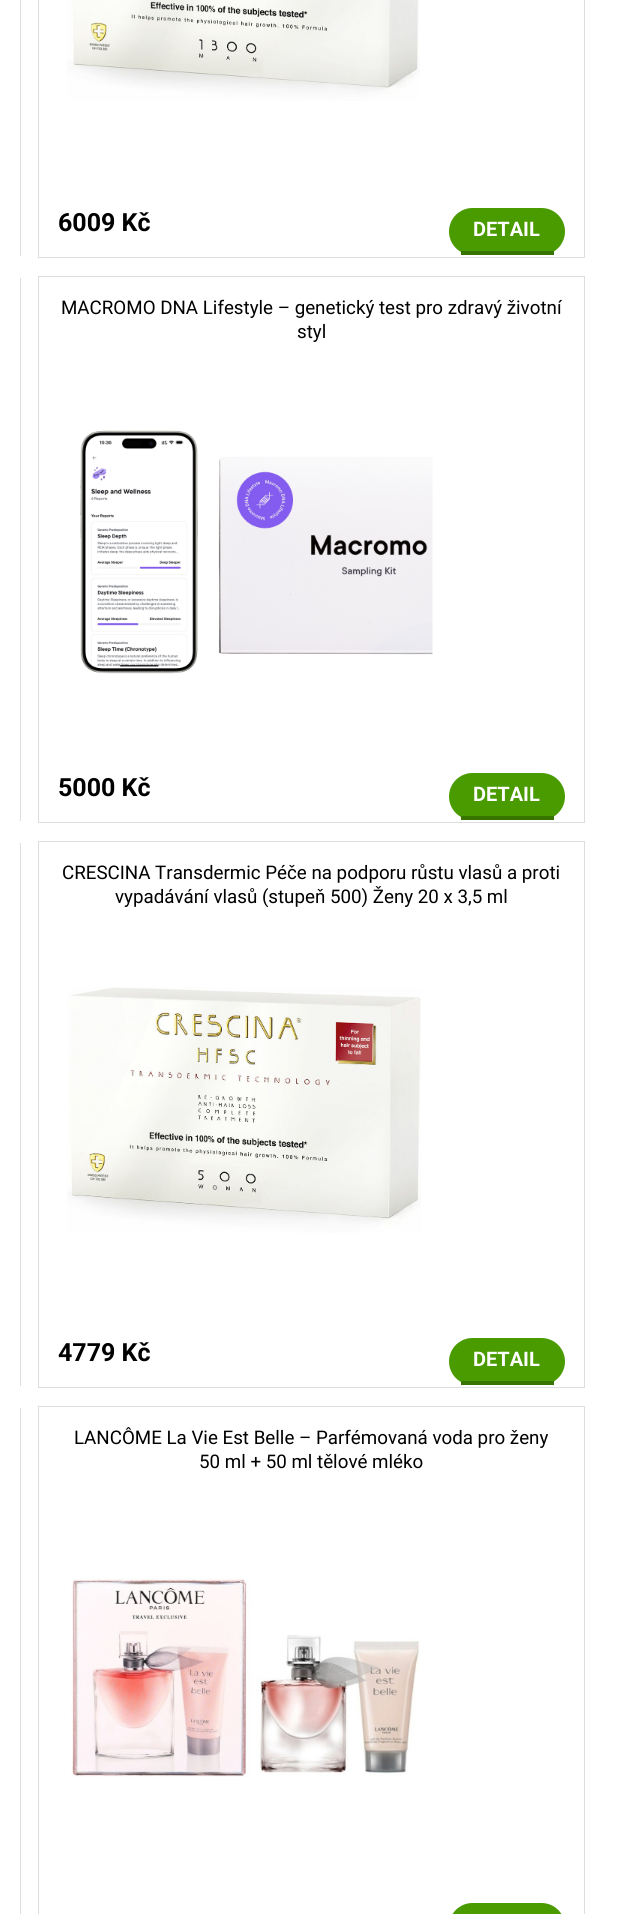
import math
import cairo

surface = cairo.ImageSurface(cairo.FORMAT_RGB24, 622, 1914)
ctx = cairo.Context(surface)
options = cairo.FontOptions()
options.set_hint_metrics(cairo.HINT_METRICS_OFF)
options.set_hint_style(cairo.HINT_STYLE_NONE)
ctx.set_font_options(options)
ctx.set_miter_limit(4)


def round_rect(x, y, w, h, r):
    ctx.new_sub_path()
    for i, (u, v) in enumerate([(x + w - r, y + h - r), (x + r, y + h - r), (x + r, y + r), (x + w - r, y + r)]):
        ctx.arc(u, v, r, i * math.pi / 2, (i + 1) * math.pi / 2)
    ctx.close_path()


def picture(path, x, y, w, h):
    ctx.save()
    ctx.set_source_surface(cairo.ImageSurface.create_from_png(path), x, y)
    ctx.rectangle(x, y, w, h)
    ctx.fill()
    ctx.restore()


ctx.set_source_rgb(1, 1, 1)
ctx.paint()
ctx.rectangle(38.5, -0.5, 546, 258)
ctx.set_source_rgb(0.867, 0.867, 0.867)
ctx.set_line_width(1)
ctx.stroke()
ctx.rectangle(20, 0, 1, 256)
ctx.fill()
picture("img1.png", 67, 0, 353, 101)
ctx.select_font_face("Roboto", cairo.FONT_SLANT_NORMAL, cairo.FONT_WEIGHT_BOLD)
ctx.set_font_size(25)
ctx.set_source_rgb(0, 0, 0)
ctx.move_to(58, 231)
ctx.show_text("6009 Kč")
ctx.set_source_rgb(0.286, 0.608, 0)
round_rect(449, 208, 116, 47, 23.5)
ctx.fill()
ctx.set_source_rgb(0.216, 0.459, 0)
ctx.rectangle(461, 251, 93, 4)
ctx.fill()
ctx.set_font_size(20)
ctx.set_source_rgb(1, 1, 1)
ctx.move_to(473, 236)
ctx.show_text("DETAIL")
ctx.rectangle(38.5, 276.5, 546, 546)
ctx.set_source_rgb(0.867, 0.867, 0.867)
ctx.stroke()
ctx.rectangle(20, 278, 1, 543)
ctx.fill()
ctx.select_font_face("Roboto")
ctx.set_font_size(18.75)
ctx.set_source_rgb(0, 0, 0)
ctx.move_to(61, 314)
ctx.show_text("MACROMO DNA Lifestyle – genetický test pro zdravý životní")
ctx.move_to(297, 338)
ctx.show_text("styl")
picture("img2.png", 80, 430, 353, 244)
ctx.select_font_face("Roboto", cairo.FONT_SLANT_NORMAL, cairo.FONT_WEIGHT_BOLD)
ctx.set_font_size(25)
ctx.move_to(58, 796)
ctx.show_text("5000 Kč")
ctx.set_source_rgb(0.286, 0.608, 0)
round_rect(449, 773, 116, 47, 23.5)
ctx.fill()
ctx.set_source_rgb(0.216, 0.459, 0)
ctx.rectangle(461, 816, 93, 4)
ctx.fill()
ctx.set_font_size(20)
ctx.set_source_rgb(1, 1, 1)
ctx.move_to(473, 801)
ctx.show_text("DETAIL")
ctx.rectangle(38.5, 841.5, 546, 546)
ctx.set_source_rgb(0.867, 0.867, 0.867)
ctx.stroke()
ctx.rectangle(20, 843, 1, 543)
ctx.fill()
ctx.select_font_face("Roboto")
ctx.set_font_size(18.75)
ctx.set_source_rgb(0, 0, 0)
ctx.move_to(62, 879)
ctx.show_text("CRESCINA Transdermic Péče na podporu růstu vlasů a proti")
ctx.move_to(115, 903)
ctx.show_text("vypadávání vlasů (stupeň 500) Ženy 20 x 3,5 ml")
picture("img3.png", 67, 987, 354, 246)
ctx.select_font_face("Roboto", cairo.FONT_SLANT_NORMAL, cairo.FONT_WEIGHT_BOLD)
ctx.set_font_size(25)
ctx.move_to(58, 1361)
ctx.show_text("4779 Kč")
ctx.set_source_rgb(0.286, 0.608, 0)
round_rect(449, 1338, 116, 47, 23.5)
ctx.fill()
ctx.set_source_rgb(0.216, 0.459, 0)
ctx.rectangle(461, 1381, 93, 4)
ctx.fill()
ctx.set_font_size(20)
ctx.set_source_rgb(1, 1, 1)
ctx.move_to(473, 1366)
ctx.show_text("DETAIL")
ctx.rectangle(38.5, 1406.5, 546, 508)
ctx.set_source_rgb(0.867, 0.867, 0.867)
ctx.stroke()
ctx.rectangle(20, 1408, 1, 506)
ctx.fill()
ctx.select_font_face("Roboto")
ctx.set_font_size(18.75)
ctx.set_source_rgb(0, 0, 0)
ctx.move_to(74, 1444)
ctx.show_text("LANCÔME La Vie Est Belle – Parfémovaná voda pro ženy")
ctx.move_to(199, 1468)
ctx.show_text("50 ml + 50 ml tělové mléko")
picture("img4.png", 71, 1578, 349, 199)
ctx.set_source_rgb(0.286, 0.608, 0)
round_rect(449, 1903, 116, 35, 23.5)
ctx.fill()
surface.write_to_png("page.png")
